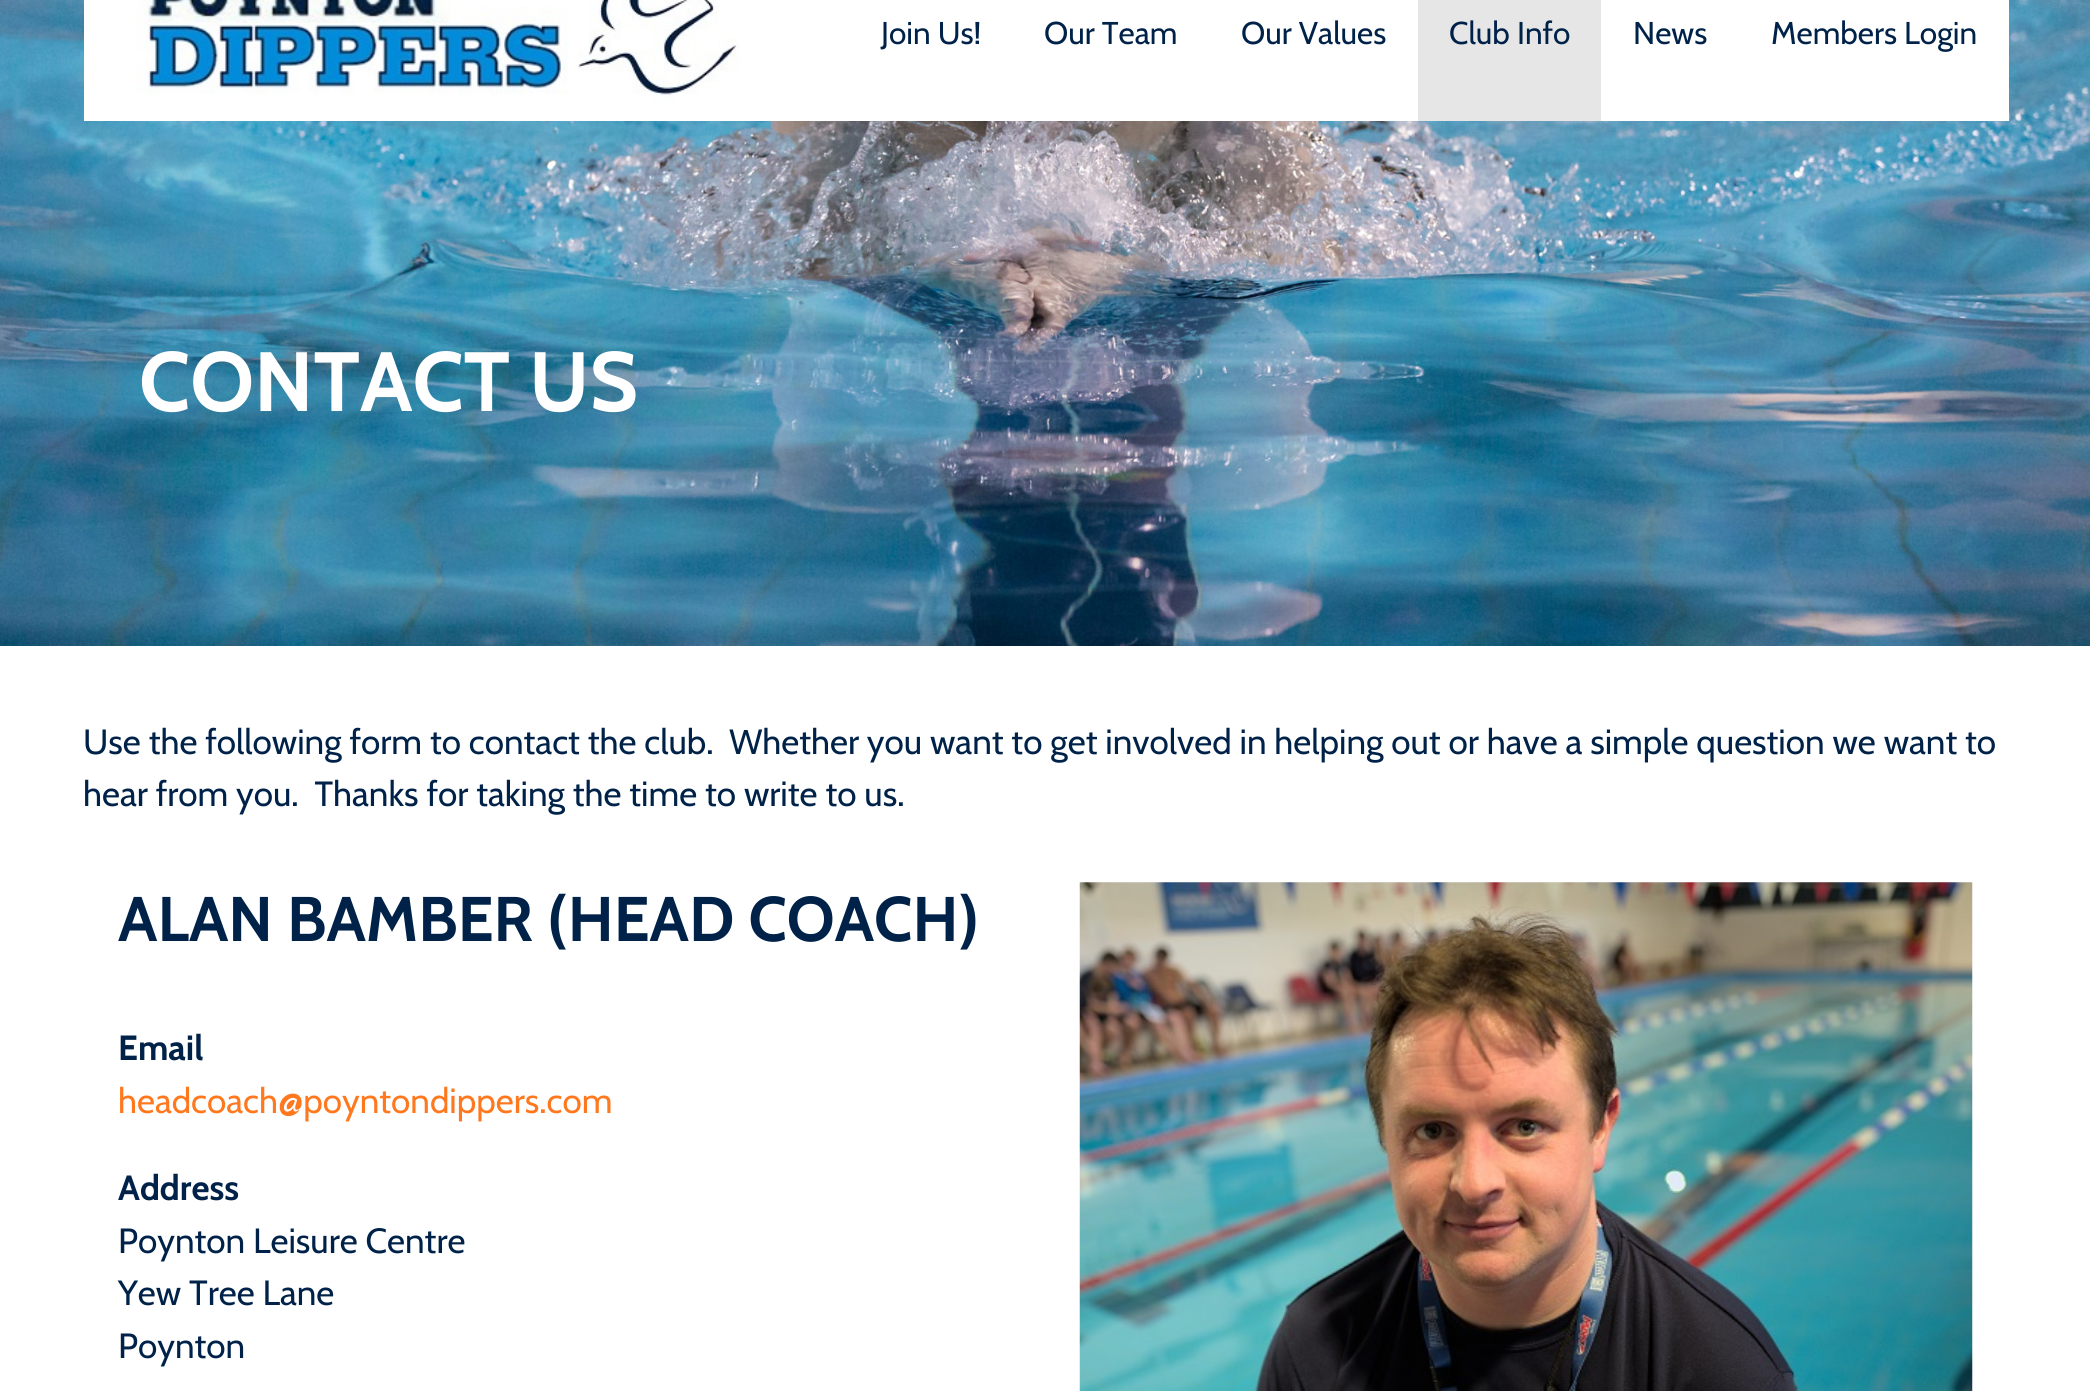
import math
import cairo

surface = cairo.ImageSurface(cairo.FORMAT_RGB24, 2090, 1391)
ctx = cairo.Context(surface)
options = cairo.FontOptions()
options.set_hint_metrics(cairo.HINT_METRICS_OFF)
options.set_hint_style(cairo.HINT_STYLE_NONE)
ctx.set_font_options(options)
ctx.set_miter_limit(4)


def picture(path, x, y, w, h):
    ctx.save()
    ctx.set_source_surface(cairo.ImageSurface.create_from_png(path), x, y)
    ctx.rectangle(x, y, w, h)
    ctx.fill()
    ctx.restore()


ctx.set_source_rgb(1, 1, 1)
ctx.paint()
picture("img2.png", 0, 0, 2090, 646)
ctx.set_source_rgb(1, 1, 1)
ctx.rectangle(84, 0, 1925, 121)
ctx.fill()
picture("img1.png", 136, 0, 604, 101)
ctx.select_font_face("Cabin")
ctx.set_font_size(31.5)
ctx.set_source_rgb(0, 0.133, 0.286)
ctx.move_to(881, 44)
ctx.show_text("Join Us!")
ctx.move_to(1044, 44)
ctx.show_text("Our Team")
ctx.move_to(1241, 44)
ctx.show_text("Our Values")
ctx.set_source_rgb(0.902, 0.902, 0.902)
ctx.rectangle(1418, 0, 183, 121)
ctx.fill()
ctx.set_source_rgb(0, 0.133, 0.286)
ctx.move_to(1449, 44)
ctx.show_text("Club Info")
ctx.move_to(1633, 44)
ctx.show_text("News")
ctx.move_to(1771, 44)
ctx.show_text("Members Login")
ctx.select_font_face("Cabin", cairo.FONT_SLANT_NORMAL, cairo.FONT_WEIGHT_BOLD)
ctx.set_font_size(84)
ctx.set_source_rgb(1, 1, 1)
ctx.move_to(139, 411)
ctx.show_text("CONTACT US")
ctx.select_font_face("Cabin")
ctx.set_font_size(35)
ctx.set_source_rgb(0, 0.133, 0.286)
ctx.move_to(83, 754)
ctx.show_text("Use the following form to contact the club.  Whether you want to get involved in helping out or have a simple question we want to")
ctx.move_to(83, 806)
ctx.show_text("hear from you.  Thanks for taking the time to write to us.")
ctx.select_font_face("Cabin", cairo.FONT_SLANT_NORMAL, cairo.FONT_WEIGHT_BOLD)
ctx.set_font_size(63)
ctx.move_to(118, 941)
ctx.show_text("ALAN BAMBER (HEAD COACH)")
ctx.set_font_size(35)
ctx.move_to(118, 1060)
ctx.show_text("Email")
ctx.select_font_face("Cabin")
ctx.set_source_rgb(1, 0.471, 0.118)
ctx.move_to(118, 1113)
ctx.show_text("headcoach@poyntondippers.com")
ctx.select_font_face("Cabin", cairo.FONT_SLANT_NORMAL, cairo.FONT_WEIGHT_BOLD)
ctx.set_source_rgb(0, 0.133, 0.286)
ctx.move_to(118, 1200)
ctx.show_text("Address")
ctx.select_font_face("Cabin")
ctx.move_to(118, 1253)
ctx.show_text("Poynton Leisure Centre")
ctx.move_to(118, 1305)
ctx.show_text("Yew Tree Lane")
ctx.move_to(118, 1358)
ctx.show_text("Poynton")
picture("img3.png", 1079, 882, 894, 509)
surface.write_to_png("page.png")
